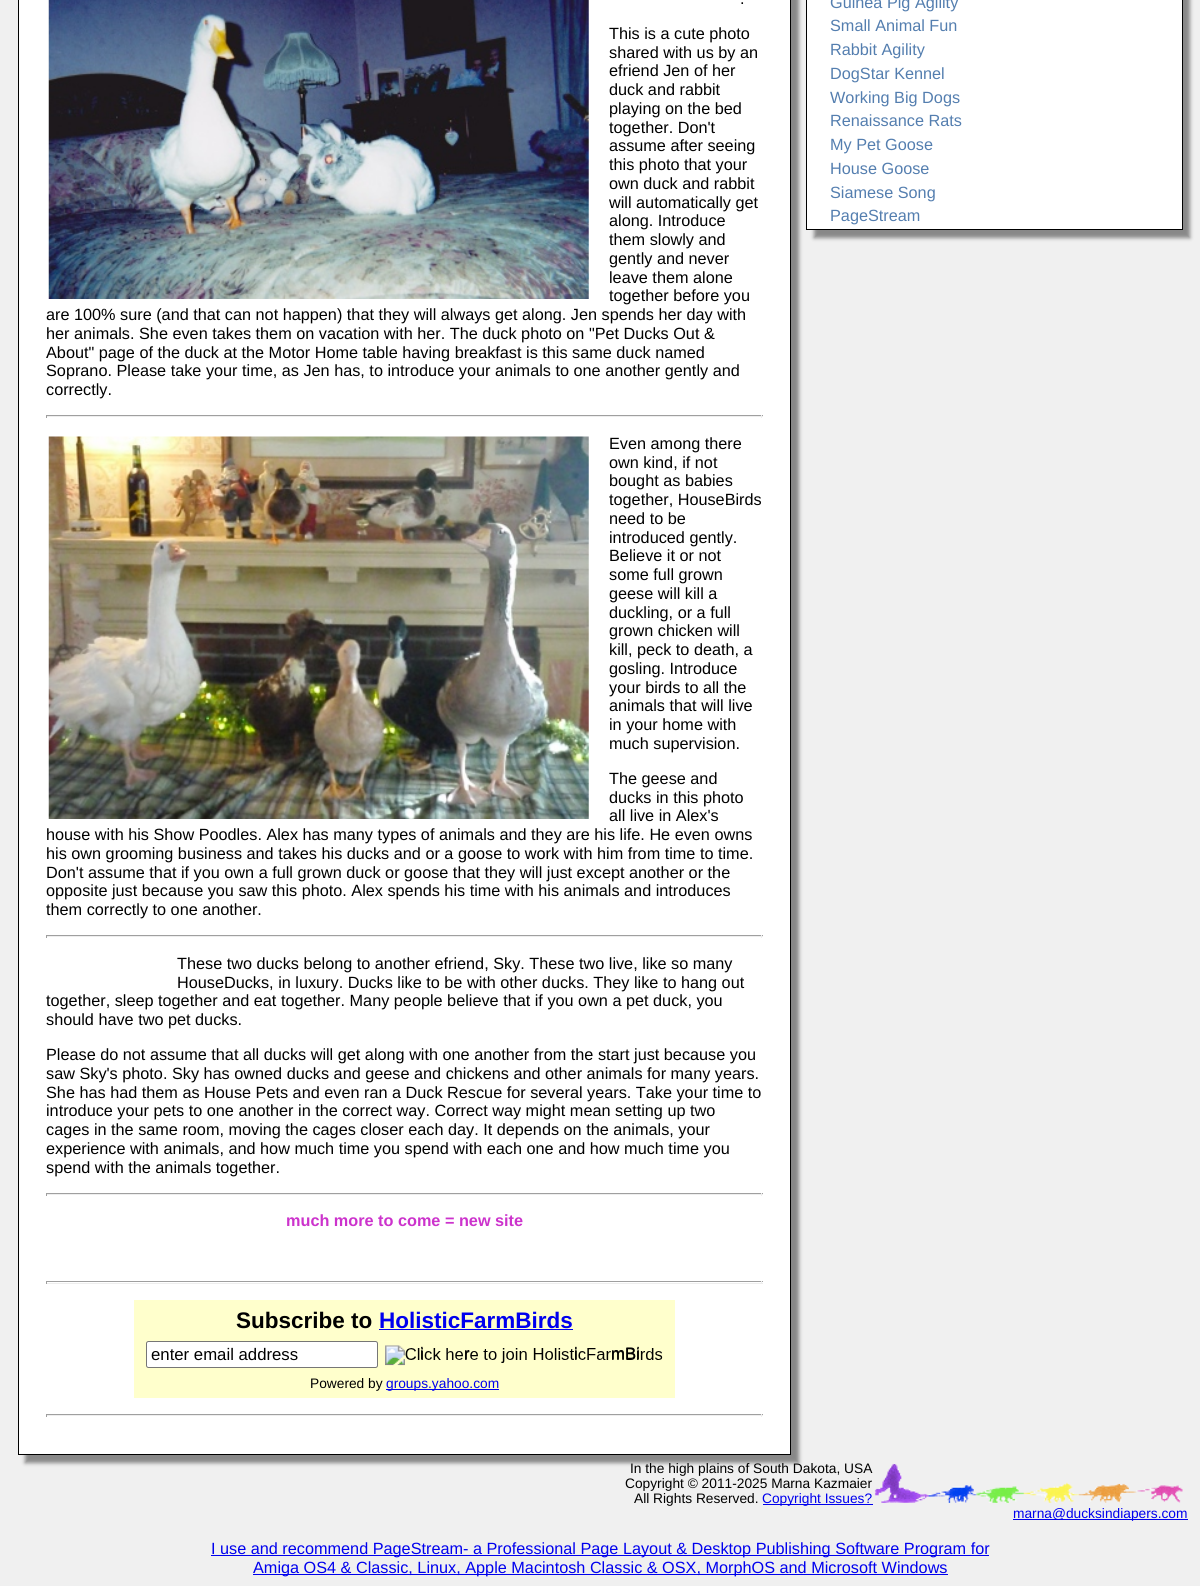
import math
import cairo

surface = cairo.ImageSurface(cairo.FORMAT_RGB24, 1200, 1586)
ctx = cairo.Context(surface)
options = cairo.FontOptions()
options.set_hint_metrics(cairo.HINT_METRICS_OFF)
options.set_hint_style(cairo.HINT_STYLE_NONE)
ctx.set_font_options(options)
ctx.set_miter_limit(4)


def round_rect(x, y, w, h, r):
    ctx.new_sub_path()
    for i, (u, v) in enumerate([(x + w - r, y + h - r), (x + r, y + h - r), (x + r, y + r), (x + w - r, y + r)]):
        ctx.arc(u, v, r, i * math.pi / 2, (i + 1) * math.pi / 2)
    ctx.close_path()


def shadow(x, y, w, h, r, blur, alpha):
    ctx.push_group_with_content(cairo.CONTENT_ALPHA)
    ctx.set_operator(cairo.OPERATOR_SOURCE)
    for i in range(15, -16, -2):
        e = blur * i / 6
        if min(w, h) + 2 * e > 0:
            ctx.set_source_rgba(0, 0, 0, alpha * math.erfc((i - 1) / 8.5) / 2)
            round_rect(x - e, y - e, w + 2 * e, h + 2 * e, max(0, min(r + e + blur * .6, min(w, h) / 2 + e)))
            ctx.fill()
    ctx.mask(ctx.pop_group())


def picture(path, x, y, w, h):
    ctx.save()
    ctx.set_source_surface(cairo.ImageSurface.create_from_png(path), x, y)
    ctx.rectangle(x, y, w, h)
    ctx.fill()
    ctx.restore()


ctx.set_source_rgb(0.941, 0.941, 0.941)
ctx.paint()
ctx.set_source_rgb(0.533, 0.533, 0.533)
shadow(25, -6, 774, 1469, 0, 2, 1)
ctx.set_source_rgb(1, 1, 1)
ctx.rectangle(18.5, -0.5, 772, 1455)
ctx.fill_preserve()
ctx.set_source_rgb(0, 0, 0)
ctx.set_line_width(1)
ctx.stroke()
picture("img1.png", 48, 0, 541, 299)
ctx.select_font_face("Liberation Sans")
ctx.set_font_size(16.25)
ctx.move_to(740, 4)
ctx.show_text(".")
ctx.move_to(609, 39)
ctx.show_text("This is a cute photo")
ctx.move_to(609, 58)
ctx.show_text("shared with us by an")
ctx.move_to(609, 76)
ctx.show_text("efriend Jen of her")
ctx.move_to(609, 95)
ctx.show_text("duck and rabbit")
ctx.move_to(609, 114)
ctx.show_text("playing on the bed")
ctx.move_to(609, 133)
ctx.show_text("together. Don't")
ctx.move_to(609, 151)
ctx.show_text("assume after seeing")
ctx.move_to(609, 170)
ctx.show_text("this photo that your")
ctx.move_to(609, 189)
ctx.show_text("own duck and rabbit")
ctx.move_to(609, 208)
ctx.show_text("will automatically get")
ctx.move_to(609, 226)
ctx.show_text("along. Introduce")
ctx.move_to(609, 245)
ctx.show_text("them slowly and")
ctx.move_to(609, 264)
ctx.show_text("gently and never")
ctx.move_to(609, 283)
ctx.show_text("leave them alone")
ctx.move_to(609, 301)
ctx.show_text("together before you")
ctx.move_to(46, 320)
ctx.show_text("are 100% sure (and that can not happen) that they will always get along. Jen spends her day with")
ctx.move_to(46, 339)
ctx.show_text("her animals. She even takes them on vacation with her. The duck photo on \"Pet Ducks Out &")
ctx.move_to(46, 358)
ctx.show_text("About\" page of the duck at the Motor Home table having breakfast is this same duck named")
ctx.move_to(46, 376)
ctx.show_text("Soprano. Please take your time, as Jen has, to introduce your animals to one another gently and")
ctx.move_to(46, 395)
ctx.show_text("correctly.")
ctx.set_source_rgb(0.624, 0.624, 0.624)
ctx.rectangle(46, 415, 717, 1)
ctx.fill()
ctx.set_source_rgb(0.933, 0.933, 0.933)
ctx.rectangle(761, 415, 1, 3)
ctx.fill()
ctx.rectangle(46, 416, 717, 1)
ctx.fill()
ctx.set_source_rgb(0.624, 0.624, 0.624)
ctx.rectangle(46, 415, 1, 3)
ctx.fill()
picture("img2.png", 48, 436, 541, 383)
ctx.set_source_rgb(0, 0, 0)
ctx.move_to(609, 449)
ctx.show_text("Even among there")
ctx.move_to(609, 468)
ctx.show_text("own kind, if not")
ctx.move_to(609, 486)
ctx.show_text("bought as babies")
ctx.move_to(609, 505)
ctx.show_text("together, HouseBirds")
ctx.move_to(609, 524)
ctx.show_text("need to be")
ctx.move_to(609, 543)
ctx.show_text("introduced gently.")
ctx.move_to(609, 561)
ctx.show_text("Believe it or not")
ctx.move_to(609, 580)
ctx.show_text("some full grown")
ctx.move_to(609, 599)
ctx.show_text("geese will kill a")
ctx.move_to(609, 618)
ctx.show_text("duckling, or a full")
ctx.move_to(609, 636)
ctx.show_text("grown chicken will")
ctx.move_to(609, 655)
ctx.show_text("kill, peck to death, a")
ctx.move_to(609, 674)
ctx.show_text("gosling. Introduce")
ctx.move_to(609, 693)
ctx.show_text("your birds to all the")
ctx.move_to(609, 711)
ctx.show_text("animals that will live")
ctx.move_to(609, 730)
ctx.show_text("in your home with")
ctx.move_to(609, 749)
ctx.show_text("much supervision.")
ctx.move_to(609, 784)
ctx.show_text("The geese and")
ctx.move_to(609, 803)
ctx.show_text("ducks in this photo")
ctx.move_to(609, 821)
ctx.show_text("all live in Alex's")
ctx.move_to(46, 840)
ctx.show_text("house with his Show Poodles. Alex has many types of animals and they are his life. He even owns")
ctx.move_to(46, 859)
ctx.show_text("his own grooming business and takes his ducks and or a goose to work with him from time to time.")
ctx.move_to(46, 878)
ctx.show_text("Don't assume that if you own a full grown duck or goose that they will just except another or the")
ctx.move_to(46, 896)
ctx.show_text("opposite just because you saw this photo. Alex spends his time with his animals and introduces")
ctx.move_to(46, 915)
ctx.show_text("them correctly to one another.")
ctx.set_source_rgb(0.624, 0.624, 0.624)
ctx.rectangle(46, 935, 717, 1)
ctx.fill()
ctx.set_source_rgb(0.933, 0.933, 0.933)
ctx.rectangle(761, 935, 1, 3)
ctx.fill()
ctx.rectangle(46, 936, 717, 1)
ctx.fill()
ctx.set_source_rgb(0.624, 0.624, 0.624)
ctx.rectangle(46, 935, 1, 3)
ctx.fill()
ctx.set_source_rgb(0, 0, 0)
ctx.move_to(177, 969)
ctx.show_text("These two ducks belong to another efriend, Sky. These two live, like so many")
ctx.move_to(177, 988)
ctx.show_text("HouseDucks, in luxury. Ducks like to be with other ducks. They like to hang out")
ctx.move_to(46, 1006)
ctx.show_text("together, sleep together and eat together. Many people believe that if you own a pet duck, you")
ctx.move_to(46, 1025)
ctx.show_text("should have two pet ducks.")
ctx.move_to(46, 1060)
ctx.show_text("Please do not assume that all ducks will get along with one another from the start just because you")
ctx.move_to(46, 1079)
ctx.show_text("saw Sky's photo. Sky has owned ducks and geese and chickens and other animals for many years.")
ctx.move_to(46, 1098)
ctx.show_text("She has had them as House Pets and even ran a Duck Rescue for several years. Take your time to")
ctx.move_to(46, 1116)
ctx.show_text("introduce your pets to one another in the correct way. Correct way might mean setting up two")
ctx.move_to(46, 1135)
ctx.show_text("cages in the same room, moving the cages closer each day. It depends on the animals, your")
ctx.move_to(46, 1154)
ctx.show_text("experience with animals, and how much time you spend with each one and how much time you")
ctx.move_to(46, 1173)
ctx.show_text("spend with the animals together.")
ctx.set_source_rgb(0.624, 0.624, 0.624)
ctx.rectangle(46, 1193, 717, 1)
ctx.fill()
ctx.set_source_rgb(0.933, 0.933, 0.933)
ctx.rectangle(761, 1193, 1, 3)
ctx.fill()
ctx.rectangle(46, 1194, 717, 1)
ctx.fill()
ctx.set_source_rgb(0.624, 0.624, 0.624)
ctx.rectangle(46, 1193, 1, 3)
ctx.fill()
ctx.select_font_face("Liberation Sans", cairo.FONT_SLANT_NORMAL, cairo.FONT_WEIGHT_BOLD)
ctx.set_source_rgb(0.8, 0.2, 0.8)
ctx.move_to(286, 1226)
ctx.show_text("much more to come = new site")
ctx.set_source_rgb(0.624, 0.624, 0.624)
ctx.rectangle(46, 1281, 717, 1)
ctx.fill()
ctx.set_source_rgb(0.933, 0.933, 0.933)
ctx.rectangle(761, 1281, 1, 3)
ctx.fill()
ctx.rectangle(46, 1283, 717, 1)
ctx.fill()
ctx.set_source_rgb(0.624, 0.624, 0.624)
ctx.rectangle(46, 1281, 1, 3)
ctx.fill()
ctx.set_source_rgb(1, 1, 0.8)
ctx.rectangle(134, 1300, 541, 98)
ctx.fill()
ctx.set_font_size(22.5)
ctx.set_source_rgb(0, 0, 0)
ctx.move_to(236, 1328)
ctx.show_text("Subscribe to")
ctx.set_source_rgb(0, 0, 0.933)
ctx.move_to(379, 1328)
ctx.show_text("HolisticFarmBirds")
ctx.rectangle(379, 1329, 194, 1)
ctx.fill()
ctx.set_source_rgb(1, 1, 1)
round_rect(146.5, 1341.5, 231, 26, 2)
ctx.fill_preserve()
ctx.set_source_rgb(0.463, 0.463, 0.463)
ctx.stroke()
ctx.select_font_face("Liberation Sans")
ctx.set_font_size(16.75)
ctx.set_source_rgb(0, 0, 0)
ctx.move_to(151, 1360)
ctx.show_text("enter email address")
picture("img3.png", 385, 1345, 278, 21)
ctx.move_to(420, 1359)
ctx.show_text("i")
ctx.move_to(464, 1359)
ctx.show_text("r")
ctx.move_to(574, 1359)
ctx.show_text("i")
ctx.move_to(611, 1359)
ctx.show_text("mBi")
ctx.set_font_size(13.75)
ctx.move_to(310, 1388)
ctx.show_text("Powered by")
ctx.set_source_rgb(0, 0, 0.933)
ctx.rectangle(386, 1389, 113, 1)
ctx.fill()
ctx.move_to(386, 1388)
ctx.show_text("groups.yahoo.com")
ctx.set_source_rgb(0.624, 0.624, 0.624)
ctx.rectangle(46, 1414, 717, 1)
ctx.fill()
ctx.set_source_rgb(0.933, 0.933, 0.933)
ctx.rectangle(761, 1414, 1, 3)
ctx.fill()
ctx.rectangle(46, 1415, 717, 1)
ctx.fill()
ctx.set_source_rgb(0.624, 0.624, 0.624)
ctx.rectangle(46, 1414, 1, 3)
ctx.fill()
ctx.set_source_rgb(0.533, 0.533, 0.533)
shadow(814, -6, 376, 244, 0, 2, 1)
ctx.set_source_rgb(1, 1, 1)
ctx.rectangle(806.5, -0.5, 376, 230)
ctx.fill_preserve()
ctx.set_source_rgb(0, 0, 0)
ctx.stroke()
ctx.set_font_size(16.25)
ctx.set_source_rgb(0.329, 0.494, 0.686)
ctx.move_to(830, 8)
ctx.show_text("Guinea Pig Agility")
ctx.move_to(830, 31)
ctx.show_text("Small Animal Fun")
ctx.move_to(830, 55)
ctx.show_text("Rabbit Agility")
ctx.move_to(830, 79)
ctx.show_text("DogStar Kennel")
ctx.move_to(830, 103)
ctx.show_text("Working Big Dogs")
ctx.move_to(830, 126)
ctx.show_text("Renaissance Rats")
ctx.move_to(830, 150)
ctx.show_text("My Pet Goose")
ctx.move_to(830, 174)
ctx.show_text("House Goose")
ctx.move_to(830, 198)
ctx.show_text("Siamese Song")
ctx.move_to(830, 221)
ctx.show_text("PageStream")
ctx.set_font_size(13.75)
ctx.set_source_rgb(0, 0, 0)
ctx.move_to(630, 1473)
ctx.show_text("In the high plains of South Dakota, USA")
picture("img4.png", 874, 1463, 309, 40)
ctx.move_to(625, 1488)
ctx.show_text("Copyright © 2011-2025 Marna Kazmaier")
ctx.move_to(634, 1503)
ctx.show_text("All Rights Reserved.")
ctx.set_source_rgb(0, 0, 0.933)
ctx.rectangle(763, 1504, 110, 1)
ctx.fill()
ctx.move_to(762, 1503)
ctx.show_text("Copyright Issues?")
ctx.rectangle(1013, 1519, 175, 1)
ctx.fill()
ctx.move_to(1013, 1518)
ctx.show_text("marna@ducksindiapers.com")
ctx.rectangle(211, 1555, 778, 1)
ctx.fill()
ctx.set_font_size(16.25)
ctx.move_to(211, 1554)
ctx.show_text("I use and recommend PageStream- a Professional Page Layout & Desktop Publishing Software Program for")
ctx.rectangle(253, 1574, 695, 1)
ctx.fill()
ctx.move_to(253, 1573)
ctx.show_text("Amiga OS4 & Classic, Linux, Apple Macintosh Classic & OSX, MorphOS and Microsoft Windows")
surface.write_to_png("page.png")
